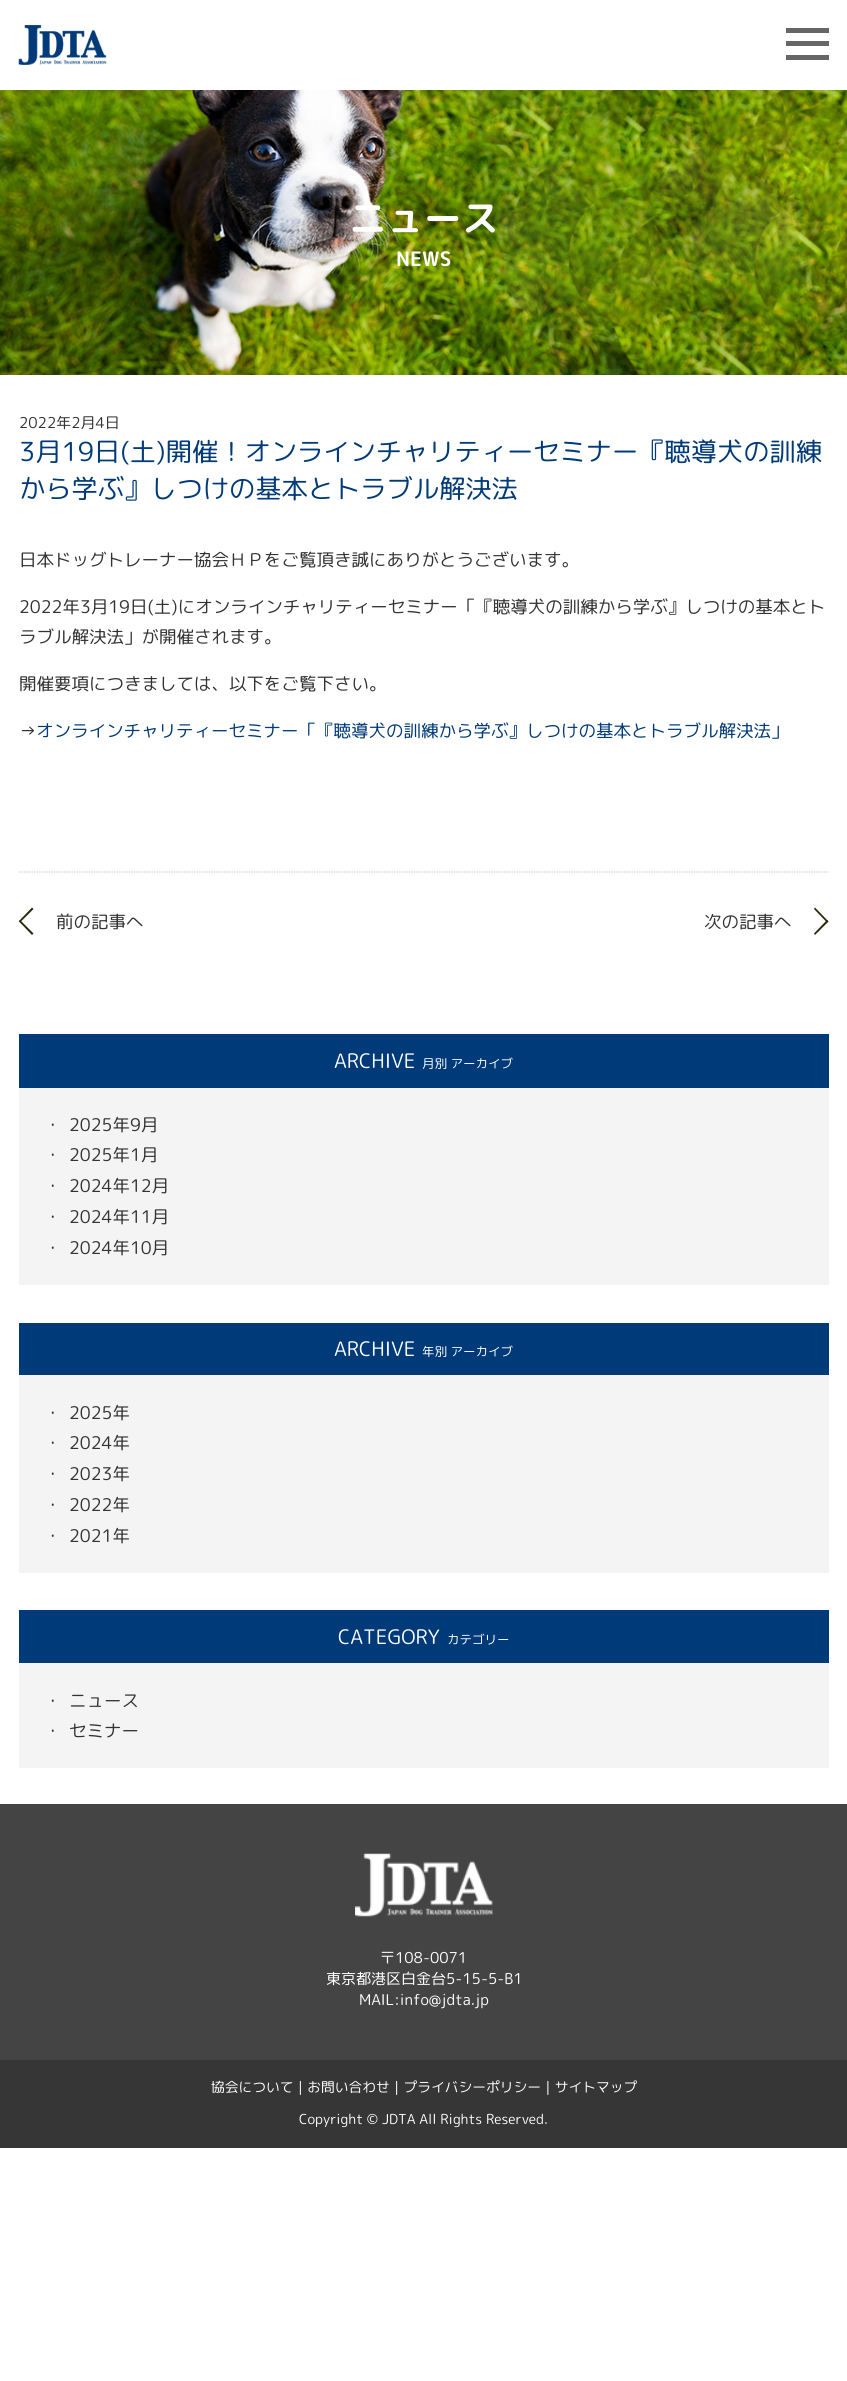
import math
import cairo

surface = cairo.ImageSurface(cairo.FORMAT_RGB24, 847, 2381)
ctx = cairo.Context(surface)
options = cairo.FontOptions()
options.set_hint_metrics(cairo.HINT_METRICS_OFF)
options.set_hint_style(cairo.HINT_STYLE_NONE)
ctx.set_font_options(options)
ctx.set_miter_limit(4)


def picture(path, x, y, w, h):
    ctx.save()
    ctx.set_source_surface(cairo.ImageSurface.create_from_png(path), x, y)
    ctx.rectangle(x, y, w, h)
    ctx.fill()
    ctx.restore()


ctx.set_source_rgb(1, 1, 1)
ctx.paint()
picture("img1.png", 18, 25, 89, 40)
ctx.set_source_rgb(0.4, 0.4, 0.4)
ctx.rectangle(786, 28, 43, 5)
ctx.fill()
ctx.rectangle(786, 41, 43, 5)
ctx.fill()
ctx.rectangle(786, 55, 43, 5)
ctx.fill()
picture("img2.png", 0, 90, 847, 285)
ctx.select_font_face("Rounded Mplus 1c Bold", cairo.FONT_SLANT_NORMAL, cairo.FONT_WEIGHT_BOLD)
ctx.set_font_size(37.5)
ctx.set_source_rgb(1, 1, 1)
ctx.move_to(349, 232)
ctx.show_text("ニュース")
ctx.set_font_size(20)
ctx.move_to(396, 266)
ctx.show_text("NEWS")
ctx.select_font_face("Rounded Mplus 1c")
ctx.set_font_size(15)
ctx.set_source_rgb(0.2, 0.2, 0.2)
ctx.move_to(19, 428)
ctx.show_text("2022年2月4日")
ctx.set_font_size(26.25)
ctx.set_source_rgb(0, 0.227, 0.471)
ctx.move_to(19, 461)
ctx.show_text("3月19日(土)開催！オンラインチャリティーセミナー『聴導犬の訓練")
ctx.move_to(19, 498)
ctx.show_text("から学ぶ』しつけの基本とトラブル解決法")
ctx.set_font_size(17.5)
ctx.set_source_rgb(0.2, 0.2, 0.2)
ctx.move_to(19, 566)
ctx.show_text("日本ドッグトレーナー協会ＨＰをご覧頂き誠にありがとうございます。")
ctx.move_to(19, 613)
ctx.show_text("2022年3月19日(土)にオンラインチャリティーセミナー「『聴導犬の訓練から学ぶ』しつけの基本とト")
ctx.move_to(19, 643)
ctx.show_text("ラブル解決法」が開催されます。")
ctx.move_to(19, 690)
ctx.show_text("開催要項につきましては、以下をご覧下さい。")
ctx.move_to(19, 737)
ctx.show_text("→")
ctx.set_source_rgb(0, 0.227, 0.471)
ctx.move_to(36, 737)
ctx.show_text("オンラインチャリティーセミナー「『聴導犬の訓練から学ぶ』しつけの基本とトラブル解決法」")
ctx.new_path()
ctx.move_to(19, 872)
ctx.line_to(829, 872)
ctx.set_source_rgb(0.8, 0.8, 0.8)
ctx.set_line_width(1.2)
ctx.set_dash([1.25, 1.25])
ctx.stroke()
ctx.set_source_rgb(0.161, 0.153, 0.035)
ctx.new_path()
ctx.move_to(19, 921)
ctx.line_to(32, 907.5)
ctx.line_to(33.5, 909)
ctx.line_to(20, 922.5)
ctx.close_path()
ctx.fill()
ctx.new_path()
ctx.move_to(19, 921.5)
ctx.line_to(20, 920)
ctx.line_to(33.5, 933.5)
ctx.line_to(32, 935)
ctx.close_path()
ctx.fill()
ctx.set_source_rgb(0.2, 0.2, 0.2)
ctx.move_to(56, 928)
ctx.show_text("前の記事へ")
ctx.move_to(704, 928)
ctx.show_text("次の記事へ")
ctx.set_source_rgb(0.161, 0.153, 0.035)
ctx.new_path()
ctx.move_to(814, 909)
ctx.line_to(815, 907.5)
ctx.line_to(828.5, 921.5)
ctx.line_to(827, 922.5)
ctx.close_path()
ctx.fill()
ctx.new_path()
ctx.move_to(814, 933.5)
ctx.line_to(827, 920)
ctx.line_to(828.5, 921.5)
ctx.line_to(815, 935)
ctx.close_path()
ctx.fill()
ctx.set_source_rgb(0, 0.227, 0.471)
ctx.rectangle(19, 1034, 810, 54)
ctx.fill()
ctx.set_font_size(20)
ctx.set_source_rgb(1, 1, 1)
ctx.move_to(334, 1068)
ctx.show_text("ARCHIVE")
ctx.set_font_size(12.5)
ctx.move_to(422, 1068)
ctx.show_text("月別 アーカイブ")
ctx.set_source_rgb(0.957, 0.957, 0.957)
ctx.rectangle(19, 1088, 810, 197)
ctx.fill()
ctx.set_font_size(17.5)
ctx.set_source_rgb(0.2, 0.2, 0.2)
ctx.move_to(44, 1131)
ctx.show_text("・")
ctx.move_to(69, 1131)
ctx.show_text("2025年9月")
ctx.move_to(44, 1161)
ctx.show_text("・")
ctx.move_to(69, 1161)
ctx.show_text("2025年1月")
ctx.move_to(44, 1192)
ctx.show_text("・")
ctx.move_to(69, 1192)
ctx.show_text("2024年12月")
ctx.move_to(44, 1223)
ctx.show_text("・")
ctx.move_to(69, 1223)
ctx.show_text("2024年11月")
ctx.move_to(44, 1254)
ctx.show_text("・")
ctx.move_to(69, 1254)
ctx.show_text("2024年10月")
ctx.set_source_rgb(0, 0.227, 0.471)
ctx.rectangle(19, 1323, 810, 52)
ctx.fill()
ctx.set_font_size(20)
ctx.set_source_rgb(1, 1, 1)
ctx.move_to(334, 1356)
ctx.show_text("ARCHIVE")
ctx.set_font_size(12.5)
ctx.move_to(422, 1356)
ctx.show_text("年別 アーカイブ")
ctx.set_source_rgb(0.957, 0.957, 0.957)
ctx.rectangle(19, 1375, 810, 198)
ctx.fill()
ctx.set_font_size(17.5)
ctx.set_source_rgb(0.2, 0.2, 0.2)
ctx.move_to(44, 1419)
ctx.show_text("・")
ctx.move_to(69, 1419)
ctx.show_text("2025年")
ctx.move_to(44, 1449)
ctx.show_text("・")
ctx.move_to(69, 1449)
ctx.show_text("2024年")
ctx.move_to(44, 1480)
ctx.show_text("・")
ctx.move_to(69, 1480)
ctx.show_text("2023年")
ctx.move_to(44, 1511)
ctx.show_text("・")
ctx.move_to(69, 1511)
ctx.show_text("2022年")
ctx.move_to(44, 1542)
ctx.show_text("・")
ctx.move_to(69, 1542)
ctx.show_text("2021年")
ctx.set_source_rgb(0, 0.227, 0.471)
ctx.rectangle(19, 1610, 810, 53)
ctx.fill()
ctx.set_font_size(20)
ctx.set_source_rgb(1, 1, 1)
ctx.move_to(338, 1644)
ctx.show_text("CATEGORY")
ctx.set_font_size(12.5)
ctx.move_to(447, 1644)
ctx.show_text("カテゴリー")
ctx.set_source_rgb(0.957, 0.957, 0.957)
ctx.rectangle(19, 1663, 810, 105)
ctx.fill()
ctx.set_font_size(17.5)
ctx.set_source_rgb(0.2, 0.2, 0.2)
ctx.move_to(44, 1707)
ctx.show_text("・")
ctx.move_to(69, 1707)
ctx.show_text("ニュース")
ctx.move_to(44, 1737)
ctx.show_text("・")
ctx.move_to(69, 1737)
ctx.show_text("セミナー")
ctx.set_source_rgb(0.267, 0.267, 0.267)
ctx.rectangle(0, 1804, 847, 256)
ctx.fill()
picture("img3.png", 355, 1853, 138, 64)
ctx.set_font_size(15)
ctx.set_source_rgb(1, 1, 1)
ctx.move_to(380, 1963)
ctx.show_text("〒108-0071")
ctx.move_to(326, 1984)
ctx.show_text("東京都港区白金台5-15-5-B1")
ctx.move_to(359, 2005)
ctx.show_text("MAIL:info@jdta.jp")
ctx.set_source_rgb(0.212, 0.212, 0.212)
ctx.rectangle(0, 2060, 847, 88)
ctx.fill()
ctx.set_font_size(13.75)
ctx.set_source_rgb(1, 1, 1)
ctx.move_to(211, 2092)
ctx.show_text("協会について｜お問い合わせ｜プライバシーポリシー｜サイトマップ")
ctx.move_to(299, 2124)
ctx.show_text("Copyright © JDTA All Rights Reserved.")
surface.write_to_png("page.png")
